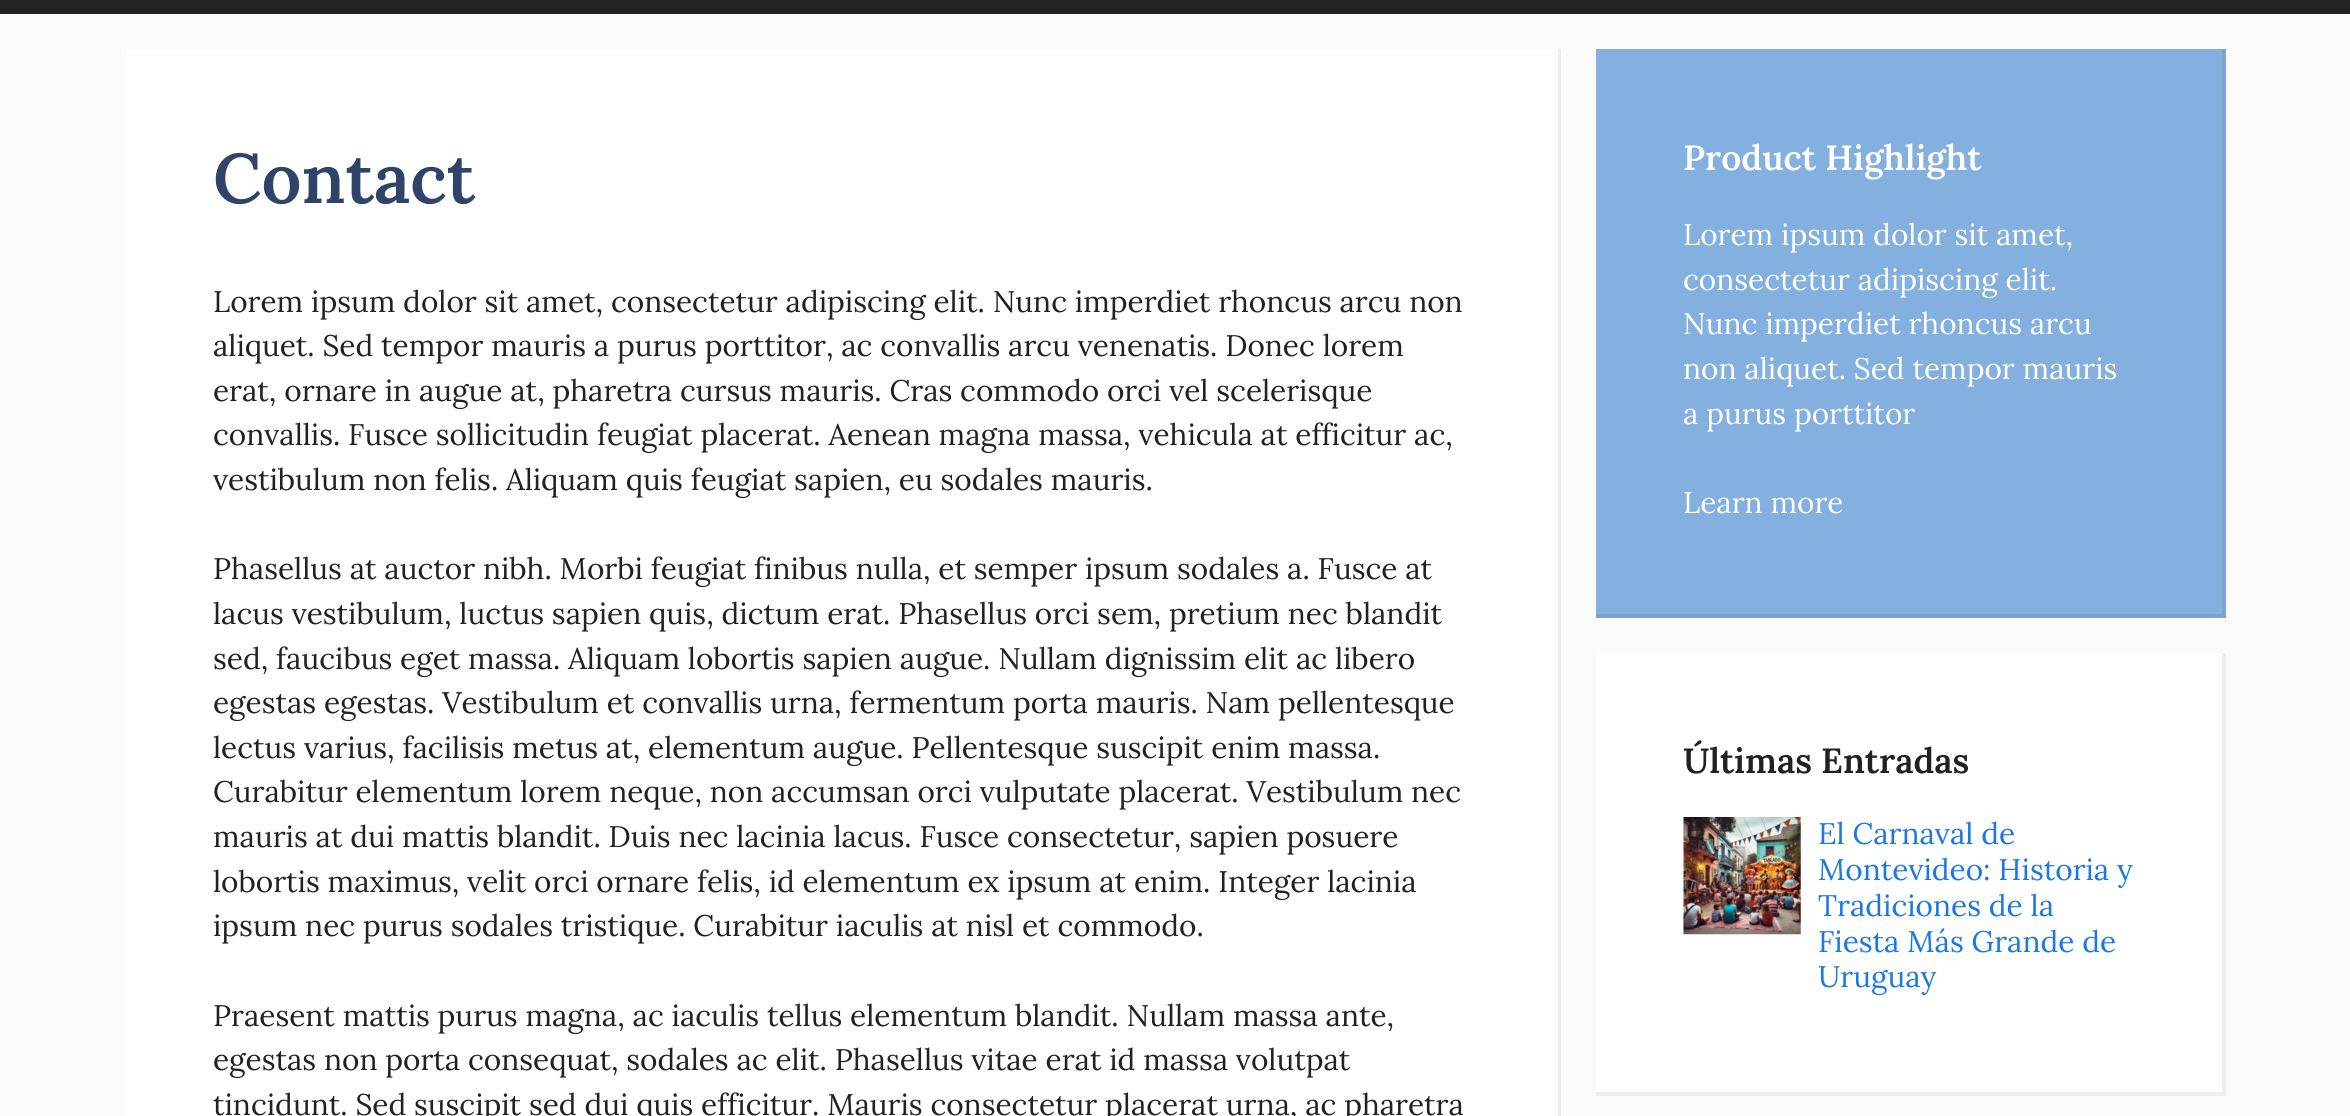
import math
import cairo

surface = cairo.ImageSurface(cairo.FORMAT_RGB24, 2350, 1116)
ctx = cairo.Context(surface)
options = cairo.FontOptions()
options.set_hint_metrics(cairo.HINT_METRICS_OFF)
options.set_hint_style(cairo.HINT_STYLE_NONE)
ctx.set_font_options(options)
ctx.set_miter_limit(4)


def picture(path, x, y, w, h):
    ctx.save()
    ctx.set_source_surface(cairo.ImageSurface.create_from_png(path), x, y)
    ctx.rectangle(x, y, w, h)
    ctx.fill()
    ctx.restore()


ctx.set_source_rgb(0.98, 0.98, 0.98)
ctx.paint()
ctx.set_source_rgb(0.141, 0.133, 0.149)
ctx.rectangle(0, 0, 2350, 14)
ctx.fill()
ctx.set_source_rgb(1, 1, 1)
ctx.rectangle(126, 49, 1432, 1067)
ctx.fill()
ctx.set_source_rgb(0.929, 0.929, 0.929)
ctx.new_path()
ctx.move_to(1561, 49)
ctx.line_to(1561, 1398)
ctx.line_to(1558, 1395)
ctx.line_to(1558, 49)
ctx.close_path()
ctx.fill()
ctx.select_font_face("Lora SemiBold")
ctx.set_font_size(70)
ctx.set_source_rgb(0.184, 0.267, 0.408)
ctx.move_to(213, 203)
ctx.show_text("Contact")
ctx.select_font_face("Lora")
ctx.set_font_size(29.75)
ctx.set_source_rgb(0.129, 0.129, 0.129)
ctx.move_to(213, 312)
ctx.show_text("Lorem ipsum dolor sit amet, consectetur adipiscing elit. Nunc imperdiet rhoncus arcu non")
ctx.move_to(213, 356)
ctx.show_text("aliquet. Sed tempor mauris a purus porttitor, ac convallis arcu venenatis. Donec lorem")
ctx.move_to(213, 401)
ctx.show_text("erat, ornare in augue at, pharetra cursus mauris. Cras commodo orci vel scelerisque")
ctx.move_to(213, 445)
ctx.show_text("convallis. Fusce sollicitudin feugiat placerat. Aenean magna massa, vehicula at efficitur ac,")
ctx.move_to(213, 490)
ctx.show_text("vestibulum non felis. Aliquam quis feugiat sapien, eu sodales mauris.")
ctx.move_to(213, 579)
ctx.show_text("Phasellus at auctor nibh. Morbi feugiat finibus nulla, et semper ipsum sodales a. Fusce at")
ctx.move_to(213, 624)
ctx.show_text("lacus vestibulum, luctus sapien quis, dictum erat. Phasellus orci sem, pretium nec blandit")
ctx.move_to(213, 669)
ctx.show_text("sed, faucibus eget massa. Aliquam lobortis sapien augue. Nullam dignissim elit ac libero")
ctx.move_to(213, 713)
ctx.show_text("egestas egestas. Vestibulum et convallis urna, fermentum porta mauris. Nam pellentesque")
ctx.move_to(213, 758)
ctx.show_text("lectus varius, facilisis metus at, elementum augue. Pellentesque suscipit enim massa.")
ctx.move_to(213, 802)
ctx.show_text("Curabitur elementum lorem neque, non accumsan orci vulputate placerat. Vestibulum nec")
ctx.move_to(213, 847)
ctx.show_text("mauris at dui mattis blandit. Duis nec lacinia lacus. Fusce consectetur, sapien posuere")
ctx.move_to(213, 892)
ctx.show_text("lobortis maximus, velit orci ornare felis, id elementum ex ipsum at enim. Integer lacinia")
ctx.move_to(213, 936)
ctx.show_text("ipsum nec purus sodales tristique. Curabitur iaculis at nisl et commodo.")
ctx.move_to(213, 1026)
ctx.show_text("Praesent mattis purus magna, ac iaculis tellus elementum blandit. Nullam massa ante,")
ctx.move_to(213, 1070)
ctx.show_text("egestas non porta consequat, sodales ac elit. Phasellus vitae erat id massa volutpat")
ctx.move_to(213, 1115)
ctx.show_text("tincidunt. Sed suscipit sed dui quis efficitur. Mauris consectetur placerat urna, ac pharetra")
ctx.set_source_rgb(0.514, 0.69, 0.871)
ctx.rectangle(1596, 49, 630, 569)
ctx.fill()
ctx.set_source_rgb(0.478, 0.643, 0.808)
ctx.new_path()
ctx.move_to(2226, 49)
ctx.line_to(2226, 618)
ctx.line_to(2222, 614)
ctx.line_to(2222, 49)
ctx.close_path()
ctx.fill()
ctx.set_source_rgba(0, 0, 0, 0.07)
ctx.new_path()
ctx.move_to(2226, 618)
ctx.line_to(1596, 618)
ctx.line_to(1596, 614)
ctx.line_to(2222, 614)
ctx.close_path()
ctx.fill()
ctx.select_font_face("Lora SemiBold")
ctx.set_font_size(35)
ctx.set_source_rgb(1, 1, 1)
ctx.move_to(1683, 170)
ctx.show_text("Product Highlight")
ctx.select_font_face("Lora")
ctx.set_font_size(29.75)
ctx.move_to(1683, 245)
ctx.show_text("Lorem ipsum dolor sit amet,")
ctx.move_to(1683, 290)
ctx.show_text("consectetur adipiscing elit.")
ctx.move_to(1683, 334)
ctx.show_text("Nunc imperdiet rhoncus arcu")
ctx.move_to(1683, 379)
ctx.show_text("non aliquet. Sed tempor mauris")
ctx.move_to(1683, 424)
ctx.show_text("a purus porttitor")
ctx.move_to(1683, 513)
ctx.show_text("Learn more")
ctx.rectangle(1596, 653, 630, 443)
ctx.fill()
ctx.set_source_rgb(0.929, 0.929, 0.929)
ctx.new_path()
ctx.move_to(2226, 653)
ctx.line_to(2226, 1096)
ctx.line_to(2222, 1092)
ctx.line_to(2222, 653)
ctx.close_path()
ctx.fill()
ctx.set_source_rgba(0, 0, 0, 0.07)
ctx.new_path()
ctx.move_to(2226, 1096)
ctx.line_to(1596, 1096)
ctx.line_to(1596, 1092)
ctx.line_to(2222, 1092)
ctx.close_path()
ctx.fill()
ctx.select_font_face("Lora SemiBold")
ctx.set_font_size(35)
ctx.set_source_rgb(0.129, 0.129, 0.129)
ctx.move_to(1683, 773)
ctx.show_text("Últimas Entradas")
picture("img1.png", 1683, 817, 118, 118)
ctx.select_font_face("Lora")
ctx.set_font_size(29.75)
ctx.set_source_rgb(0.106, 0.471, 0.886)
ctx.move_to(1818, 844)
ctx.show_text("El Carnaval de")
ctx.move_to(1818, 880)
ctx.show_text("Montevideo: Historia y")
ctx.move_to(1818, 916)
ctx.show_text("Tradiciones de la")
ctx.move_to(1818, 952)
ctx.show_text("Fiesta Más Grande de")
ctx.move_to(1818, 987)
ctx.show_text("Uruguay")
surface.write_to_png("page.png")
